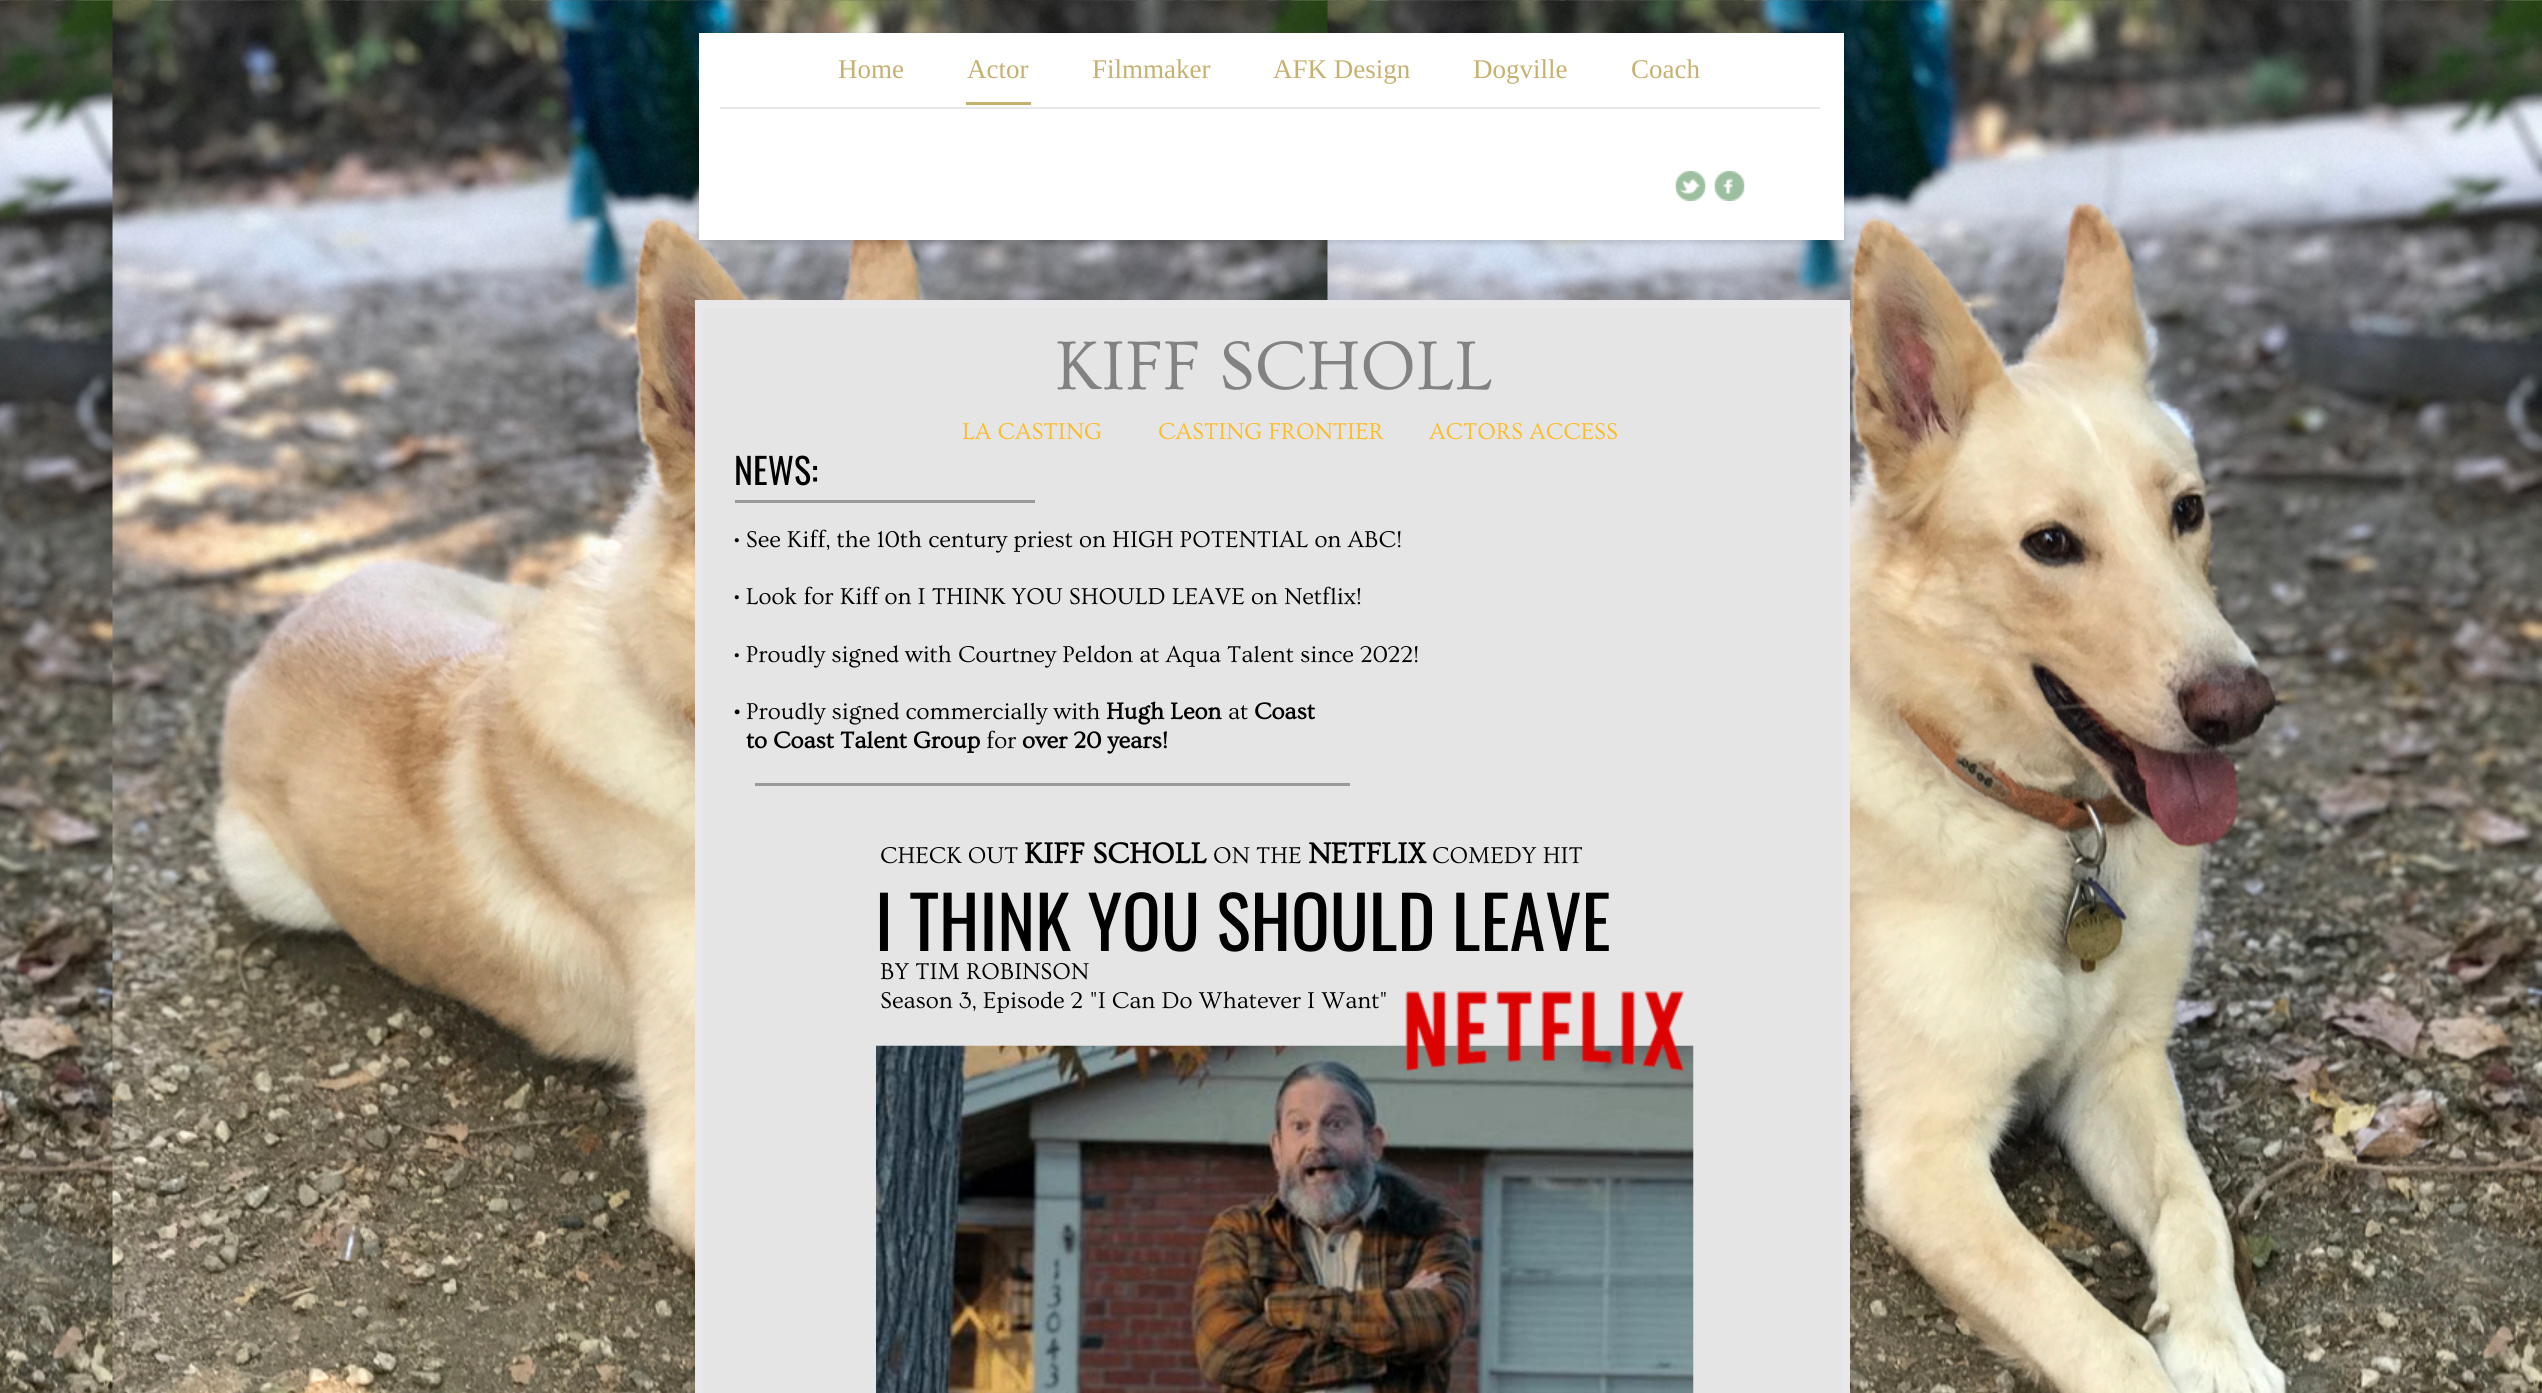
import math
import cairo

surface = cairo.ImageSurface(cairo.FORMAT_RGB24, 2542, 1393)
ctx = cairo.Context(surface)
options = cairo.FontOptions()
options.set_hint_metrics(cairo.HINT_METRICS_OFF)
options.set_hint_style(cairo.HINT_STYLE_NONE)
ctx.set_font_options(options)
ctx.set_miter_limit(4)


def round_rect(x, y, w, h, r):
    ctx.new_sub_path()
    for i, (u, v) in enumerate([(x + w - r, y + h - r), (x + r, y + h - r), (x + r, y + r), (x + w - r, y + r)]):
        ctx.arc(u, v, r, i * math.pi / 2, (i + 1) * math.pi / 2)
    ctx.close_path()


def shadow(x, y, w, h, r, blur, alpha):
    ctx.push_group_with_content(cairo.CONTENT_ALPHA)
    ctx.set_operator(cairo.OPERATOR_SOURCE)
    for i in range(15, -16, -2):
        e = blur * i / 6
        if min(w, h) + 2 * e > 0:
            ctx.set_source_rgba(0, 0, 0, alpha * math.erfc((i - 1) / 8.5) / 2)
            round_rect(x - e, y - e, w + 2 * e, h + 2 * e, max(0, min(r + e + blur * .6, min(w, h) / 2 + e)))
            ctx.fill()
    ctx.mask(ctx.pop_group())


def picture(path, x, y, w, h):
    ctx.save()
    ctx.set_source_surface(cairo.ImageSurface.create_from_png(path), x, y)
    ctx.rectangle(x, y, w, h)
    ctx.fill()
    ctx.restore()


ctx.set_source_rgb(1, 1, 1)
ctx.paint()
picture("img1.png", 0, 0, 2542, 1393)
ctx.set_source_rgb(0.898, 0.898, 0.898)
ctx.rectangle(699, 304, 1147, 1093)
ctx.fill_preserve()
ctx.set_source_rgb(0.91, 0.91, 0.918)
ctx.set_line_width(8)
ctx.stroke()
ctx.set_source_rgb(0, 0, 0)
shadow(699, 36, 1145, 207, 0, 3, 0.15)
ctx.set_source_rgb(1, 1, 1)
ctx.rectangle(699, 33, 1145, 207)
ctx.fill()
ctx.set_source_rgb(0.91, 0.91, 0.918)
ctx.rectangle(720, 107, 1100, 2)
ctx.fill()
ctx.select_font_face("Liberation Serif")
ctx.set_font_size(27)
ctx.set_source_rgb(0.776, 0.694, 0.439)
ctx.move_to(838, 78)
ctx.show_text("Home")
ctx.set_source_rgb(0.773, 0.694, 0.431)
ctx.rectangle(966, 102, 65, 3)
ctx.fill()
ctx.set_source_rgb(0.776, 0.694, 0.439)
ctx.move_to(967, 78)
ctx.show_text("Actor")
ctx.move_to(1092, 78)
ctx.show_text("Filmmaker")
ctx.move_to(1273, 78)
ctx.show_text("AFK Design")
ctx.move_to(1473, 78)
ctx.show_text("Dogville")
ctx.move_to(1631, 78)
ctx.show_text("Coach")
picture("img2.png", 1675, 171, 31, 30)
picture("img3.png", 1714, 171, 31, 30)
ctx.select_font_face("Ovo")
ctx.set_font_size(72)
ctx.set_source_rgb(0.51, 0.51, 0.51)
ctx.move_to(1055, 389)
ctx.show_text("KIFF SCHOLL")
ctx.set_font_size(24)
ctx.set_source_rgb(1, 0.733, 0.133)
ctx.move_to(962, 439)
ctx.show_text("LA CASTING")
ctx.move_to(1158, 439)
ctx.show_text("CASTING FRONTIER")
ctx.move_to(1429, 439)
ctx.show_text("ACTORS ACCESS")
ctx.select_font_face("Oswald")
ctx.set_font_size(36)
ctx.set_source_rgb(0, 0, 0)
ctx.move_to(734, 485)
ctx.show_text("NEWS:")
ctx.select_font_face("Ovo")
ctx.set_font_size(24)
ctx.move_to(734, 547)
ctx.show_text("• See Kiff, the 10th century priest on HIGH POTENTIAL on ABC!")
ctx.move_to(734, 604)
ctx.show_text("• Look for Kiff on I THINK YOU SHOULD LEAVE on Netflix!")
ctx.move_to(734, 662)
ctx.show_text("• Proudly signed with Courtney Peldon at Aqua Talent since 2022!")
ctx.select_font_face("Ovo", cairo.FONT_SLANT_NORMAL, cairo.FONT_WEIGHT_BOLD)
ctx.move_to(734, 719)
ctx.show_text("•")
ctx.select_font_face("Ovo")
ctx.move_to(746, 719)
ctx.show_text("Proudly signed commercially with")
ctx.select_font_face("Ovo", cairo.FONT_SLANT_NORMAL, cairo.FONT_WEIGHT_BOLD)
ctx.move_to(1106, 719)
ctx.show_text("Hugh Leon")
ctx.select_font_face("Ovo")
ctx.move_to(1228, 719)
ctx.show_text("at")
ctx.select_font_face("Ovo", cairo.FONT_SLANT_NORMAL, cairo.FONT_WEIGHT_BOLD)
ctx.move_to(1254, 719)
ctx.show_text("Coast")
ctx.move_to(746, 748)
ctx.show_text("to Coast Talent Group")
ctx.select_font_face("Ovo")
ctx.move_to(986, 748)
ctx.show_text("for")
ctx.select_font_face("Ovo", cairo.FONT_SLANT_NORMAL, cairo.FONT_WEIGHT_BOLD)
ctx.move_to(1022, 748)
ctx.show_text("over 20 years!")
ctx.set_source_rgb(0.6, 0.6, 0.6)
ctx.rectangle(735, 500, 300, 3)
ctx.fill()
ctx.rectangle(755, 783, 595, 3)
ctx.fill()
ctx.select_font_face("Ovo")
ctx.set_source_rgb(0, 0, 0)
ctx.move_to(880, 863)
ctx.show_text("CHECK OUT")
ctx.select_font_face("Ovo", cairo.FONT_SLANT_NORMAL, cairo.FONT_WEIGHT_BOLD)
ctx.set_font_size(30)
ctx.move_to(1024, 863)
ctx.show_text("KIFF SCHOLL")
ctx.select_font_face("Ovo")
ctx.set_font_size(24)
ctx.move_to(1213, 863)
ctx.show_text("ON THE")
ctx.select_font_face("Ovo", cairo.FONT_SLANT_NORMAL, cairo.FONT_WEIGHT_BOLD)
ctx.set_font_size(30)
ctx.move_to(1308, 863)
ctx.show_text("NETFLIX")
ctx.select_font_face("Ovo")
ctx.set_font_size(24)
ctx.move_to(1432, 863)
ctx.show_text("COMEDY HIT")
ctx.move_to(880, 979)
ctx.show_text("BY TIM ROBINSON")
ctx.move_to(880, 1008)
ctx.show_text("Season 3, Episode 2 \"I Can Do Whatever I Want\"")
ctx.select_font_face("Oswald")
ctx.set_font_size(72)
ctx.move_to(875, 951)
ctx.show_text("I THINK YOU SHOULD LEAVE")
picture("img5.png", 876, 1045, 818, 348)
picture("img4.png", 1405, 991, 280, 81)
surface.write_to_png("page.png")
